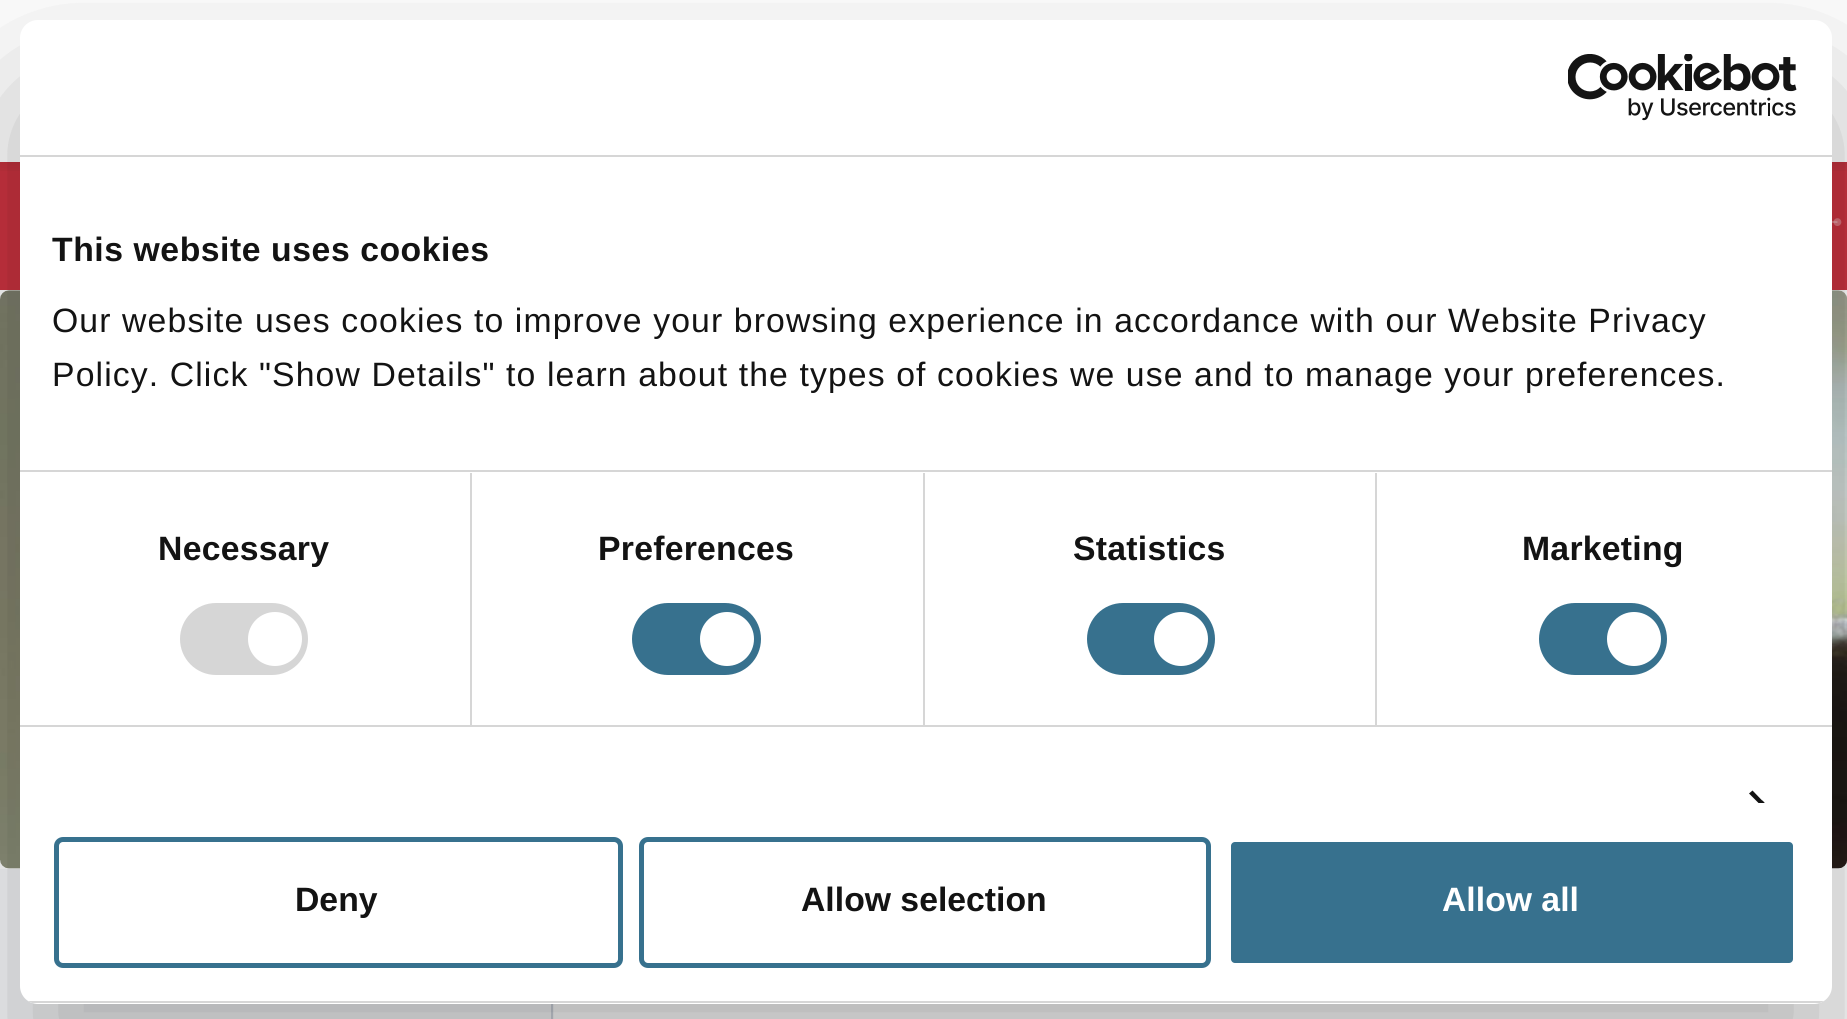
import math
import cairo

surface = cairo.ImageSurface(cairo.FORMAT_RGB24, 1847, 1019)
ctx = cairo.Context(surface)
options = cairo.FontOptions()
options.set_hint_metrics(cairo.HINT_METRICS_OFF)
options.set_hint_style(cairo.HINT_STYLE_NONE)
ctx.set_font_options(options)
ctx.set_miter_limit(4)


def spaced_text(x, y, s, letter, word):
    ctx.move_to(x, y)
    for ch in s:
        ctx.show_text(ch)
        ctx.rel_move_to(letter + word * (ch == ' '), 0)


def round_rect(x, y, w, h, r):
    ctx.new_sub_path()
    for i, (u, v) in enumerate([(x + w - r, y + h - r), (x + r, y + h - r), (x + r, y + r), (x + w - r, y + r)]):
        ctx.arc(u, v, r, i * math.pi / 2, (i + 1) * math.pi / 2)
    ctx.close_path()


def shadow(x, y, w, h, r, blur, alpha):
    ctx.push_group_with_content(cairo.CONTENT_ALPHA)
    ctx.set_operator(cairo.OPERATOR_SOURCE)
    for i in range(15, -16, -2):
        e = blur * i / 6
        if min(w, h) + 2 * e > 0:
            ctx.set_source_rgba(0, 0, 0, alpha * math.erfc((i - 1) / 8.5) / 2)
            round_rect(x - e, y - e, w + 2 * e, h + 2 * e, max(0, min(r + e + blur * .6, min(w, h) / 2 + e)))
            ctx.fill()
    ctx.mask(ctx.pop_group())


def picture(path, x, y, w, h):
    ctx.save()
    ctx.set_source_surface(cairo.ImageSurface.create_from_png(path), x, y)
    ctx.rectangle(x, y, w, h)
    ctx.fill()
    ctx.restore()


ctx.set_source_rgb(1, 1, 1)
ctx.paint()
ctx.set_source_rgb(0.796, 0.2, 0.251)
ctx.rectangle(0, 162, 1847, 128)
ctx.fill()
ctx.save()
ctx.rectangle(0, 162, 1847, 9)
ctx.clip()
ctx.set_source_rgb(0, 0, 0)
shadow(0, 2, 1847, 162, 0, 9, 0.1)
ctx.restore()
picture("img1.png", 1832, 218, 10, 8)
picture("img2.png", 0, 290, 1847, 579)
ctx.set_source_rgb(0.961, 0.965, 0.973)
ctx.rectangle(0, 869, 554, 150)
ctx.fill()
ctx.set_source_rgb(0.812, 0.831, 0.867)
ctx.rectangle(551, 1004, 2, 15)
ctx.fill()
ctx.set_source_rgb(0, 0, 0)
shadow(20, 92, 1812, 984, 18, 76.5, 0.3)
ctx.set_source_rgb(1, 1, 1)
round_rect(20, 20, 1812, 984, 18)
ctx.fill()
ctx.set_source_rgb(0.839, 0.839, 0.839)
ctx.rectangle(20, 155, 1812, 2)
ctx.fill()
picture("img3.png", 1568, 54, 229, 67)
ctx.rectangle(20, 470, 1812, 2)
ctx.fill()
ctx.select_font_face("Liberation Sans", cairo.FONT_SLANT_NORMAL, cairo.FONT_WEIGHT_BOLD)
ctx.set_font_size(33.75)
ctx.set_source_rgb(0.078, 0.078, 0.078)
spaced_text(52, 261, "This website uses cookies", 0.55, 0)
ctx.select_font_face("Liberation Sans")
spaced_text(52, 332, "Our website uses cookies to improve your browsing experience in accordance with our Website Privacy", 1.12, 0)
spaced_text(52, 386, "Policy. Click \"Show Details\" to learn about the types of cookies we use and to manage your preferences.", 1.12, 0)
ctx.set_source_rgb(0.839, 0.839, 0.839)
ctx.rectangle(20, 725, 1812, 2)
ctx.fill()
ctx.rectangle(470, 473, 2, 252)
ctx.fill()
ctx.select_font_face("Liberation Sans", cairo.FONT_SLANT_NORMAL, cairo.FONT_WEIGHT_BOLD)
ctx.set_source_rgb(0.078, 0.078, 0.078)
spaced_text(158, 560, "Necessary", 0.25, 0)
ctx.set_source_rgb(0.839, 0.839, 0.839)
round_rect(180, 603, 128, 72, 36)
ctx.fill()
ctx.set_source_rgb(1, 1, 1)
ctx.arc(275, 639, 27, 0, 2 * math.pi)
ctx.fill()
ctx.set_source_rgb(0.839, 0.839, 0.839)
ctx.rectangle(923, 473, 2, 252)
ctx.fill()
ctx.set_source_rgb(0.078, 0.078, 0.078)
spaced_text(598, 560, "Preferences", 0.25, 0)
ctx.set_source_rgb(0.216, 0.443, 0.557)
round_rect(632, 603, 129, 72, 36)
ctx.fill()
ctx.set_source_rgb(1, 1, 1)
ctx.arc(727, 639, 27, 0, 2 * math.pi)
ctx.fill()
ctx.set_source_rgb(0.839, 0.839, 0.839)
ctx.rectangle(1375, 473, 2, 252)
ctx.fill()
ctx.set_source_rgb(0.078, 0.078, 0.078)
spaced_text(1073, 560, "Statistics", 0.25, 0)
ctx.set_source_rgb(0.216, 0.443, 0.557)
round_rect(1087, 603, 128, 72, 36)
ctx.fill()
ctx.set_source_rgb(1, 1, 1)
ctx.arc(1181, 639, 27, 0, 2 * math.pi)
ctx.fill()
ctx.set_source_rgb(0.078, 0.078, 0.078)
spaced_text(1522, 560, "Marketing", 0.25, 0)
ctx.set_source_rgb(0.216, 0.443, 0.557)
round_rect(1539, 603, 128, 72, 36)
ctx.fill()
ctx.set_source_rgb(1, 1, 1)
ctx.arc(1634, 639, 27, 0, 2 * math.pi)
ctx.fill()
ctx.save()
ctx.rectangle(20, 158, 1812, 645)
ctx.clip()
ctx.set_source_rgb(0.078, 0.078, 0.078)
ctx.new_path()
ctx.move_to(1752.5, 790.5)
ctx.line_to(1765.5, 804)
ctx.line_to(1762.5, 807)
ctx.line_to(1749, 793.5)
ctx.close_path()
ctx.fill()
ctx.new_path()
ctx.move_to(1762.5, 800.5)
ctx.line_to(1765.5, 804)
ctx.line_to(1752.5, 817)
ctx.line_to(1749, 814)
ctx.close_path()
ctx.fill()
ctx.restore()
ctx.save()
round_rect(20, 20, 1812, 984, 18)
ctx.clip()
ctx.set_source_rgb(0.839, 0.839, 0.839)
ctx.rectangle(20, 1001, 1812, 2)
ctx.fill()
ctx.restore()
round_rect(56.5, 839.5, 564, 126, 6.5)
ctx.set_source_rgb(0.216, 0.443, 0.557)
ctx.set_line_width(5)
ctx.stroke()
ctx.set_source_rgb(0.078, 0.078, 0.078)
ctx.move_to(295, 911)
ctx.show_text("Deny")
round_rect(641.5, 839.5, 567, 126, 6.5)
ctx.set_source_rgb(0.216, 0.443, 0.557)
ctx.stroke()
ctx.set_source_rgb(0.078, 0.078, 0.078)
ctx.move_to(801, 911)
ctx.show_text("Allow selection")
ctx.set_source_rgb(0.216, 0.443, 0.557)
round_rect(1228.5, 839.5, 567, 126, 6.5)
ctx.fill_preserve()
ctx.set_source_rgb(1, 1, 1)
ctx.stroke()
ctx.move_to(1442, 911)
ctx.show_text("Allow all")
surface.write_to_png("page.png")
